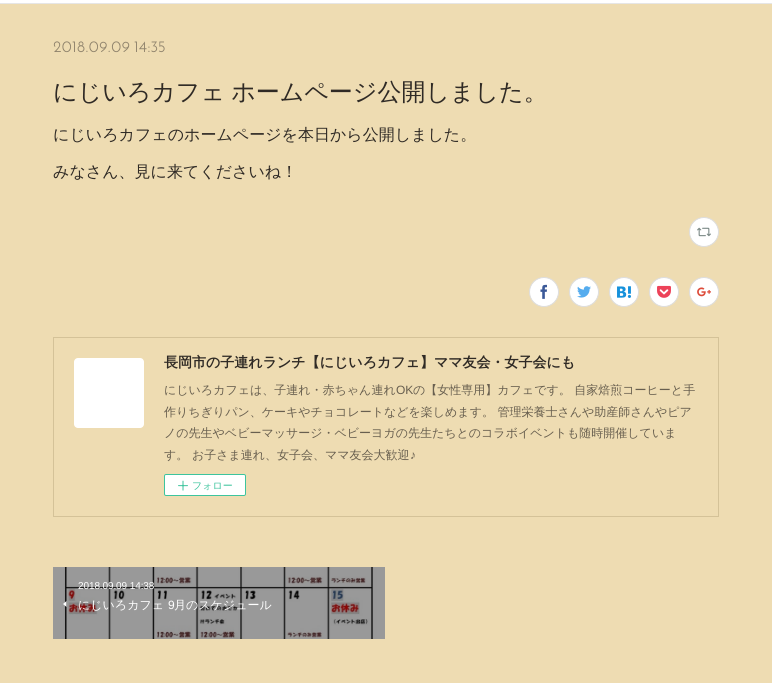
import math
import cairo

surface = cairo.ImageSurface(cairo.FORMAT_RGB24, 772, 683)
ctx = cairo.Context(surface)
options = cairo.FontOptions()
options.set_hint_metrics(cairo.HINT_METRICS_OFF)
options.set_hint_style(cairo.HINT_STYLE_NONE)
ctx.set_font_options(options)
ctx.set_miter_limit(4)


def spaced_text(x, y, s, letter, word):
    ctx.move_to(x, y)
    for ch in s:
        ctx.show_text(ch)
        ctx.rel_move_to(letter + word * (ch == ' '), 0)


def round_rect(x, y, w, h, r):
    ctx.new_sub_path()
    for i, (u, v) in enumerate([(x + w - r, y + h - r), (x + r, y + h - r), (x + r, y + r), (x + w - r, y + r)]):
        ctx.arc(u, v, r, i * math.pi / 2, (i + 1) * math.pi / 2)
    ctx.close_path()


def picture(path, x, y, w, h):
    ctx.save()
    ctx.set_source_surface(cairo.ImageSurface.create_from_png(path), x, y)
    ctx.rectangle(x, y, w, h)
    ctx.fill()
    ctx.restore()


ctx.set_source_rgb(0.933, 0.863, 0.698)
ctx.paint()
ctx.set_source_rgb(1, 1, 1)
ctx.rectangle(0, 0, 772, 3)
ctx.fill()
ctx.set_source_rgb(0.902, 0.902, 0.902)
ctx.rectangle(0, 3, 772, 1)
ctx.fill()
ctx.select_font_face("Josefin Sans")
ctx.set_font_size(16)
ctx.set_source_rgb(0.561, 0.514, 0.424)
ctx.move_to(53, 52)
ctx.show_text("2018.09.09 14:35")
ctx.select_font_face("WenQuanYi Zen Hei Medium")
ctx.set_font_size(24)
ctx.set_source_rgb(0.184, 0.165, 0.145)
spaced_text(53, 100, "にじいろカフェ ホームページ公開しました。", 0, -1)
ctx.set_font_size(16)
ctx.move_to(53, 140)
ctx.show_text("にじいろカフェのホームページを本日から公開しました。")
ctx.move_to(53, 177)
ctx.show_text("みなさん、見に来てくださいね！")
ctx.set_source_rgb(1, 1, 1)
ctx.new_path()
ctx.arc(704, 232, 14.5, 0, 2 * math.pi)
ctx.fill_preserve()
ctx.set_source_rgb(0.867, 0.867, 0.867)
ctx.set_line_width(1)
ctx.stroke()
picture("img1.png", 697, 227, 14, 10)
ctx.set_source_rgb(1, 1, 1)
ctx.arc(544, 292, 14.5, 0, 2 * math.pi)
ctx.fill_preserve()
ctx.set_source_rgb(0.867, 0.867, 0.867)
ctx.stroke()
picture("img2.png", 540, 284, 7, 15)
ctx.set_source_rgb(1, 1, 1)
ctx.arc(584, 292, 14.5, 0, 2 * math.pi)
ctx.fill_preserve()
ctx.set_source_rgb(0.867, 0.867, 0.867)
ctx.stroke()
picture("img3.png", 577, 286, 14, 12)
ctx.set_source_rgb(1, 1, 1)
ctx.arc(624, 292, 14.5, 0, 2 * math.pi)
ctx.fill_preserve()
ctx.set_source_rgb(0.867, 0.867, 0.867)
ctx.stroke()
picture("img4.png", 617, 286, 14, 12)
ctx.set_source_rgb(1, 1, 1)
ctx.arc(664, 292, 14.5, 0, 2 * math.pi)
ctx.fill_preserve()
ctx.set_source_rgb(0.867, 0.867, 0.867)
ctx.stroke()
picture("img5.png", 657, 285, 14, 13)
ctx.set_source_rgb(1, 1, 1)
ctx.arc(704, 292, 14.5, 0, 2 * math.pi)
ctx.fill_preserve()
ctx.set_source_rgb(0.867, 0.867, 0.867)
ctx.stroke()
picture("img6.png", 697, 287, 14, 10)
ctx.rectangle(53.5, 337.5, 665, 179)
ctx.set_source_rgb(0.831, 0.761, 0.596)
ctx.stroke()
ctx.set_source_rgb(1, 1, 1)
round_rect(74, 358, 70, 70, 4)
ctx.fill()
ctx.select_font_face("WenQuanYi Zen Hei", cairo.FONT_SLANT_NORMAL, cairo.FONT_WEIGHT_BOLD)
ctx.set_font_size(14)
ctx.set_source_rgb(0.184, 0.165, 0.145)
ctx.move_to(164, 367)
ctx.show_text("長岡市の子連れランチ【にじいろカフェ】ママ友会・女子会にも")
ctx.select_font_face("WenQuanYi Zen Hei Medium")
ctx.set_font_size(12)
ctx.set_source_rgb(0.408, 0.373, 0.31)
ctx.move_to(164, 394)
ctx.show_text("にじいろカフェは、子連れ・赤ちゃん連れ")
ctx.select_font_face("Liberation Sans")
ctx.move_to(396, 394)
ctx.show_text("OK")
ctx.select_font_face("WenQuanYi Zen Hei Medium")
ctx.move_to(413, 394)
ctx.show_text("の【女性専用】カフェです。 自家焙煎コーヒーと手")
ctx.move_to(164, 416)
ctx.show_text("作りちぎりパン、ケーキやチョコレートなどを楽しめます。 管理栄養士さんや助産師さんやピア")
ctx.move_to(164, 437)
ctx.show_text("ノの先生やベビーマッサージ・ベビーヨガの先生たちとのコラボイベントも随時開催していま")
ctx.move_to(164, 459)
ctx.show_text("す。 お子さま連れ、女子会、ママ友会大歓迎")
ctx.select_font_face("Liberation Sans")
ctx.move_to(410, 459)
ctx.show_text("♪")
ctx.set_source_rgb(1, 1, 1)
round_rect(164.5, 474.5, 81, 21, 1.5)
ctx.fill_preserve()
ctx.set_source_rgb(0.239, 0.769, 0.616)
ctx.stroke()
picture("img7.png", 178, 480, 10, 11)
ctx.select_font_face("WenQuanYi Zen Hei Medium")
ctx.set_font_size(10)
ctx.move_to(192, 489)
ctx.show_text("フォロー")
picture("img8.png", 53, 567, 332, 72)
ctx.select_font_face("Liberation Sans")
ctx.set_source_rgb(1, 1, 1)
spaced_text(78, 589, "2018.09.09 14:38", -0.1, 0)
ctx.new_path()
ctx.move_to(66.5, 607)
ctx.line_to(66.5, 601)
ctx.line_to(63, 604)
ctx.close_path()
ctx.fill()
ctx.select_font_face("WenQuanYi Zen Hei Medium")
ctx.set_font_size(12)
ctx.move_to(78, 609)
ctx.show_text("にじいろカフェ")
ctx.select_font_face("Liberation Sans")
ctx.move_to(168, 609)
ctx.show_text("9")
ctx.select_font_face("WenQuanYi Zen Hei Medium")
ctx.move_to(174, 609)
ctx.show_text("月のスケジュール")
surface.write_to_png("page.png")
